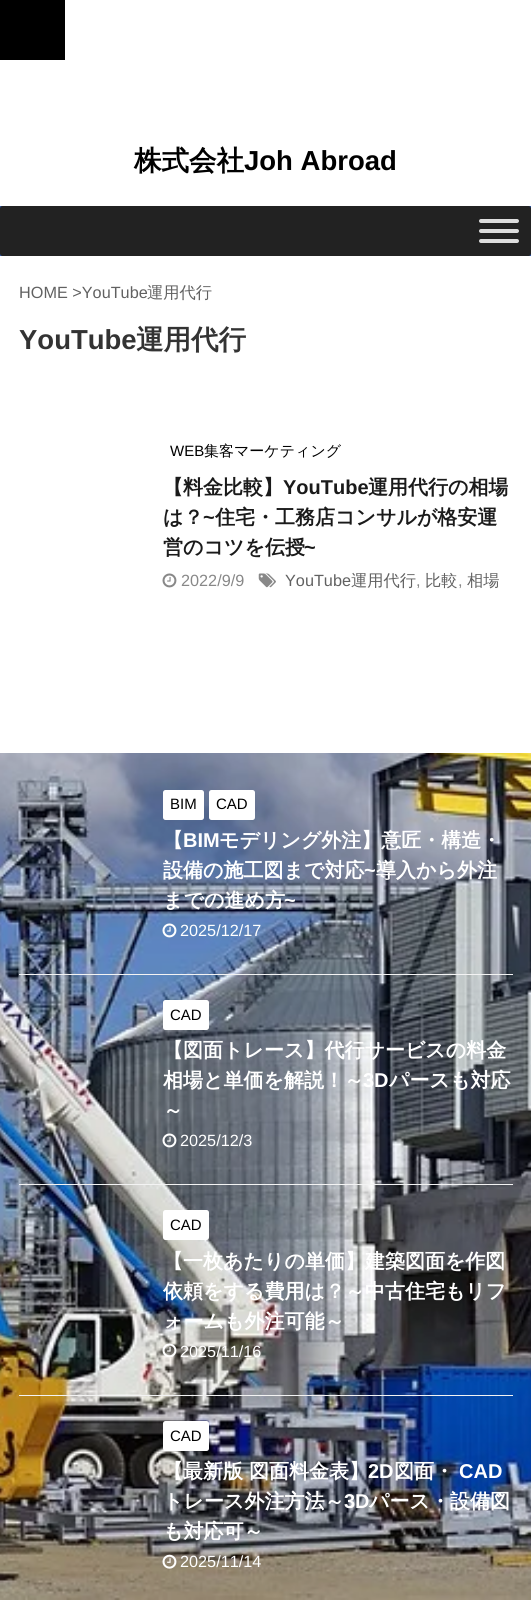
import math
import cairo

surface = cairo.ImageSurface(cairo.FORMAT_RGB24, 531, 1600)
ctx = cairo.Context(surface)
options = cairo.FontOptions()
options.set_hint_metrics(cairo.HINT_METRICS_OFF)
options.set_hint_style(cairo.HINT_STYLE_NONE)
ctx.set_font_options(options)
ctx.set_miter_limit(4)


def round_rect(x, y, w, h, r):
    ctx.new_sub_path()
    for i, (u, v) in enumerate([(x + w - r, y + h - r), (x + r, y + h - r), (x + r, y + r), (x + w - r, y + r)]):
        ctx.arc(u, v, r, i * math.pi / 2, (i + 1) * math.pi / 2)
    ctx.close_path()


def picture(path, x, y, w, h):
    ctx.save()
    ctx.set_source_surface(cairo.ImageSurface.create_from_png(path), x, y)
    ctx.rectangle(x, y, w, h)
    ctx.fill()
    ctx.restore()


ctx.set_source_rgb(1, 1, 1)
ctx.paint()
picture("img1.png", 0, 206, 531, 1394)
ctx.set_source_rgb(0, 0, 0)
ctx.rectangle(0, 0, 65, 60)
ctx.fill()
ctx.select_font_face("WenQuanYi Zen Hei", cairo.FONT_SLANT_NORMAL, cairo.FONT_WEIGHT_BOLD)
ctx.set_font_size(27.5)
ctx.move_to(134, 170)
ctx.show_text("株式会社")
ctx.select_font_face("Liberation Sans", cairo.FONT_SLANT_NORMAL, cairo.FONT_WEIGHT_BOLD)
ctx.move_to(244, 170)
ctx.show_text("Joh Abroad")
ctx.set_source_rgb(0.133, 0.133, 0.133)
round_rect(0, 206, 531, 50, 2.5)
ctx.fill()
ctx.set_source_rgb(0.867, 0.867, 0.867)
round_rect(479, 219, 40, 4, 2)
ctx.fill()
round_rect(479, 229, 40, 4, 2)
ctx.fill()
round_rect(479, 239, 40, 4, 2)
ctx.fill()
ctx.set_source_rgb(1, 1, 1)
ctx.rectangle(0, 256, 531, 497)
ctx.fill()
ctx.select_font_face("Liberation Sans")
ctx.set_font_size(16.25)
ctx.set_source_rgb(0.38, 0.38, 0.38)
ctx.move_to(19, 298)
ctx.show_text("HOME >YouTube")
ctx.select_font_face("WenQuanYi Zen Hei Medium")
ctx.move_to(147, 298)
ctx.show_text("運用代行")
ctx.select_font_face("Liberation Sans", cairo.FONT_SLANT_NORMAL, cairo.FONT_WEIGHT_BOLD)
ctx.set_font_size(27.5)
ctx.set_source_rgb(0.2, 0.2, 0.2)
ctx.move_to(19, 349)
ctx.show_text("YouTube")
ctx.select_font_face("WenQuanYi Zen Hei", cairo.FONT_SLANT_NORMAL, cairo.FONT_WEIGHT_BOLD)
ctx.move_to(136, 349)
ctx.show_text("運用代行")
ctx.select_font_face("Liberation Sans")
ctx.set_font_size(15)
ctx.set_source_rgb(0, 0, 0)
ctx.move_to(170, 456)
ctx.show_text("WEB")
ctx.select_font_face("WenQuanYi Zen Hei Medium")
ctx.move_to(204, 456)
ctx.show_text("集客マーケティング")
ctx.select_font_face("WenQuanYi Zen Hei", cairo.FONT_SLANT_NORMAL, cairo.FONT_WEIGHT_BOLD)
ctx.set_font_size(20)
ctx.set_source_rgb(0.102, 0.102, 0.102)
ctx.move_to(163, 494)
ctx.show_text("【料金比較】")
ctx.select_font_face("Liberation Sans", cairo.FONT_SLANT_NORMAL, cairo.FONT_WEIGHT_BOLD)
ctx.move_to(283, 494)
ctx.show_text("YouTube")
ctx.select_font_face("WenQuanYi Zen Hei", cairo.FONT_SLANT_NORMAL, cairo.FONT_WEIGHT_BOLD)
ctx.move_to(368, 494)
ctx.show_text("運用代行の相場")
ctx.move_to(163, 524)
ctx.show_text("は？")
ctx.select_font_face("Liberation Sans", cairo.FONT_SLANT_NORMAL, cairo.FONT_WEIGHT_BOLD)
ctx.move_to(203, 524)
ctx.show_text("~")
ctx.select_font_face("WenQuanYi Zen Hei", cairo.FONT_SLANT_NORMAL, cairo.FONT_WEIGHT_BOLD)
ctx.move_to(215, 524)
ctx.show_text("住宅・工務店コンサルが格安運")
ctx.move_to(163, 554)
ctx.show_text("営のコツを伝授")
ctx.select_font_face("Liberation Sans", cairo.FONT_SLANT_NORMAL, cairo.FONT_WEIGHT_BOLD)
ctx.move_to(304, 554)
ctx.show_text("~")
picture("img2.png", 162, 573, 15, 15)
ctx.select_font_face("Liberation Sans")
ctx.set_font_size(16.25)
ctx.set_source_rgb(0.533, 0.533, 0.533)
ctx.move_to(181, 586)
ctx.show_text("2022/9/9")
picture("img3.png", 258, 573, 18, 15)
ctx.set_source_rgb(0.38, 0.38, 0.38)
ctx.move_to(285, 586)
ctx.show_text("YouTube")
ctx.select_font_face("WenQuanYi Zen Hei Medium")
ctx.move_to(351, 586)
ctx.show_text("運用代行")
ctx.select_font_face("Liberation Sans")
ctx.set_source_rgb(0.533, 0.533, 0.533)
ctx.move_to(416, 586)
ctx.show_text(",")
ctx.select_font_face("WenQuanYi Zen Hei Medium")
ctx.set_source_rgb(0.38, 0.38, 0.38)
ctx.move_to(425, 586)
ctx.show_text("比較")
ctx.select_font_face("Liberation Sans")
ctx.set_source_rgb(0.533, 0.533, 0.533)
ctx.move_to(458, 586)
ctx.show_text(",")
ctx.select_font_face("WenQuanYi Zen Hei Medium")
ctx.set_source_rgb(0.38, 0.38, 0.38)
ctx.move_to(467, 586)
ctx.show_text("相場")
ctx.set_source_rgb(0.953, 0.953, 0.953)
ctx.rectangle(19, 974, 494, 1)
ctx.fill()
ctx.set_source_rgb(1, 1, 1)
round_rect(163, 790, 41, 30, 2.5)
ctx.fill()
ctx.select_font_face("Liberation Sans")
ctx.set_font_size(15)
ctx.set_source_rgb(0, 0, 0)
ctx.move_to(170, 809)
ctx.show_text("BIM")
ctx.set_source_rgb(1, 1, 1)
round_rect(209, 790, 46, 30, 2.5)
ctx.fill()
ctx.set_source_rgb(0, 0, 0)
ctx.move_to(216, 809)
ctx.show_text("CAD")
ctx.select_font_face("WenQuanYi Zen Hei", cairo.FONT_SLANT_NORMAL, cairo.FONT_WEIGHT_BOLD)
ctx.set_font_size(20)
ctx.set_source_rgb(1, 1, 1)
ctx.move_to(163, 847)
ctx.show_text("【")
ctx.select_font_face("Liberation Sans", cairo.FONT_SLANT_NORMAL, cairo.FONT_WEIGHT_BOLD)
ctx.move_to(183, 847)
ctx.show_text("BIM")
ctx.select_font_face("WenQuanYi Zen Hei", cairo.FONT_SLANT_NORMAL, cairo.FONT_WEIGHT_BOLD)
ctx.move_to(219, 847)
ctx.show_text("モデリング外注】意匠・構造・")
ctx.move_to(163, 877)
ctx.show_text("設備の施工図まで対応")
ctx.select_font_face("Liberation Sans", cairo.FONT_SLANT_NORMAL, cairo.FONT_WEIGHT_BOLD)
ctx.move_to(364, 877)
ctx.show_text("~")
ctx.select_font_face("WenQuanYi Zen Hei", cairo.FONT_SLANT_NORMAL, cairo.FONT_WEIGHT_BOLD)
ctx.move_to(376, 877)
ctx.show_text("導入から外注")
ctx.move_to(163, 907)
ctx.show_text("までの進め方")
ctx.select_font_face("Liberation Sans", cairo.FONT_SLANT_NORMAL, cairo.FONT_WEIGHT_BOLD)
ctx.move_to(284, 907)
ctx.show_text("~")
picture("img4.png", 162, 923, 15, 15)
ctx.select_font_face("Liberation Sans")
ctx.set_font_size(16.25)
ctx.move_to(180, 936)
ctx.show_text("2025/12/17")
ctx.set_source_rgb(0.953, 0.953, 0.953)
ctx.rectangle(19, 1184, 494, 1)
ctx.fill()
ctx.set_source_rgb(1, 1, 1)
round_rect(163, 1000, 46, 30, 2.5)
ctx.fill()
ctx.set_font_size(15)
ctx.set_source_rgb(0, 0, 0)
ctx.move_to(170, 1020)
ctx.show_text("CAD")
ctx.select_font_face("WenQuanYi Zen Hei", cairo.FONT_SLANT_NORMAL, cairo.FONT_WEIGHT_BOLD)
ctx.set_font_size(20)
ctx.set_source_rgb(1, 1, 1)
ctx.move_to(163, 1057)
ctx.show_text("【図面トレース】代行サービスの料金")
ctx.move_to(163, 1087)
ctx.show_text("相場と単価を解説！～")
ctx.select_font_face("Liberation Sans", cairo.FONT_SLANT_NORMAL, cairo.FONT_WEIGHT_BOLD)
ctx.move_to(363, 1087)
ctx.show_text("3D")
ctx.select_font_face("WenQuanYi Zen Hei", cairo.FONT_SLANT_NORMAL, cairo.FONT_WEIGHT_BOLD)
ctx.move_to(389, 1087)
ctx.show_text("パースも対応")
ctx.move_to(163, 1117)
ctx.show_text("～")
picture("img5.png", 162, 1133, 15, 15)
ctx.select_font_face("Liberation Sans")
ctx.set_font_size(16.25)
ctx.move_to(180, 1146)
ctx.show_text("2025/12/3")
ctx.set_source_rgb(0.953, 0.953, 0.953)
ctx.rectangle(19, 1395, 494, 1)
ctx.fill()
ctx.set_source_rgb(1, 1, 1)
round_rect(163, 1210, 46, 30, 2.5)
ctx.fill()
ctx.set_font_size(15)
ctx.set_source_rgb(0, 0, 0)
ctx.move_to(170, 1230)
ctx.show_text("CAD")
ctx.select_font_face("WenQuanYi Zen Hei", cairo.FONT_SLANT_NORMAL, cairo.FONT_WEIGHT_BOLD)
ctx.set_font_size(20)
ctx.set_source_rgb(1, 1, 1)
ctx.move_to(163, 1268)
ctx.show_text("【一枚あたりの単価】建築図面を作図")
ctx.move_to(163, 1298)
ctx.show_text("依頼をする費用は？～中古住宅もリフ")
ctx.move_to(163, 1328)
ctx.show_text("ォームも外注可能～")
picture("img6.png", 162, 1343, 15, 15)
ctx.select_font_face("Liberation Sans")
ctx.set_font_size(16.25)
ctx.move_to(180, 1357)
ctx.show_text("2025/11/16")
round_rect(163, 1421, 46, 30, 2.5)
ctx.fill()
ctx.set_font_size(15)
ctx.set_source_rgb(0, 0, 0)
ctx.move_to(170, 1441)
ctx.show_text("CAD")
ctx.select_font_face("WenQuanYi Zen Hei", cairo.FONT_SLANT_NORMAL, cairo.FONT_WEIGHT_BOLD)
ctx.set_font_size(20)
ctx.set_source_rgb(1, 1, 1)
ctx.move_to(163, 1478)
ctx.show_text("【最新版 図面料金表】")
ctx.select_font_face("Liberation Sans", cairo.FONT_SLANT_NORMAL, cairo.FONT_WEIGHT_BOLD)
ctx.move_to(368, 1478)
ctx.show_text("2D")
ctx.select_font_face("WenQuanYi Zen Hei", cairo.FONT_SLANT_NORMAL, cairo.FONT_WEIGHT_BOLD)
ctx.move_to(394, 1478)
ctx.show_text("図面・")
ctx.select_font_face("Liberation Sans", cairo.FONT_SLANT_NORMAL, cairo.FONT_WEIGHT_BOLD)
ctx.move_to(459, 1478)
ctx.show_text("CAD")
ctx.select_font_face("WenQuanYi Zen Hei", cairo.FONT_SLANT_NORMAL, cairo.FONT_WEIGHT_BOLD)
ctx.move_to(163, 1508)
ctx.show_text("トレース外注方法～")
ctx.select_font_face("Liberation Sans", cairo.FONT_SLANT_NORMAL, cairo.FONT_WEIGHT_BOLD)
ctx.move_to(344, 1508)
ctx.show_text("3D")
ctx.select_font_face("WenQuanYi Zen Hei", cairo.FONT_SLANT_NORMAL, cairo.FONT_WEIGHT_BOLD)
ctx.move_to(369, 1508)
ctx.show_text("パース・設備図")
ctx.move_to(163, 1538)
ctx.show_text("も対応可～")
picture("img7.png", 162, 1554, 15, 15)
ctx.select_font_face("Liberation Sans")
ctx.set_font_size(16.25)
ctx.move_to(180, 1567)
ctx.show_text("2025/11/14")
surface.write_to_png("page.png")
